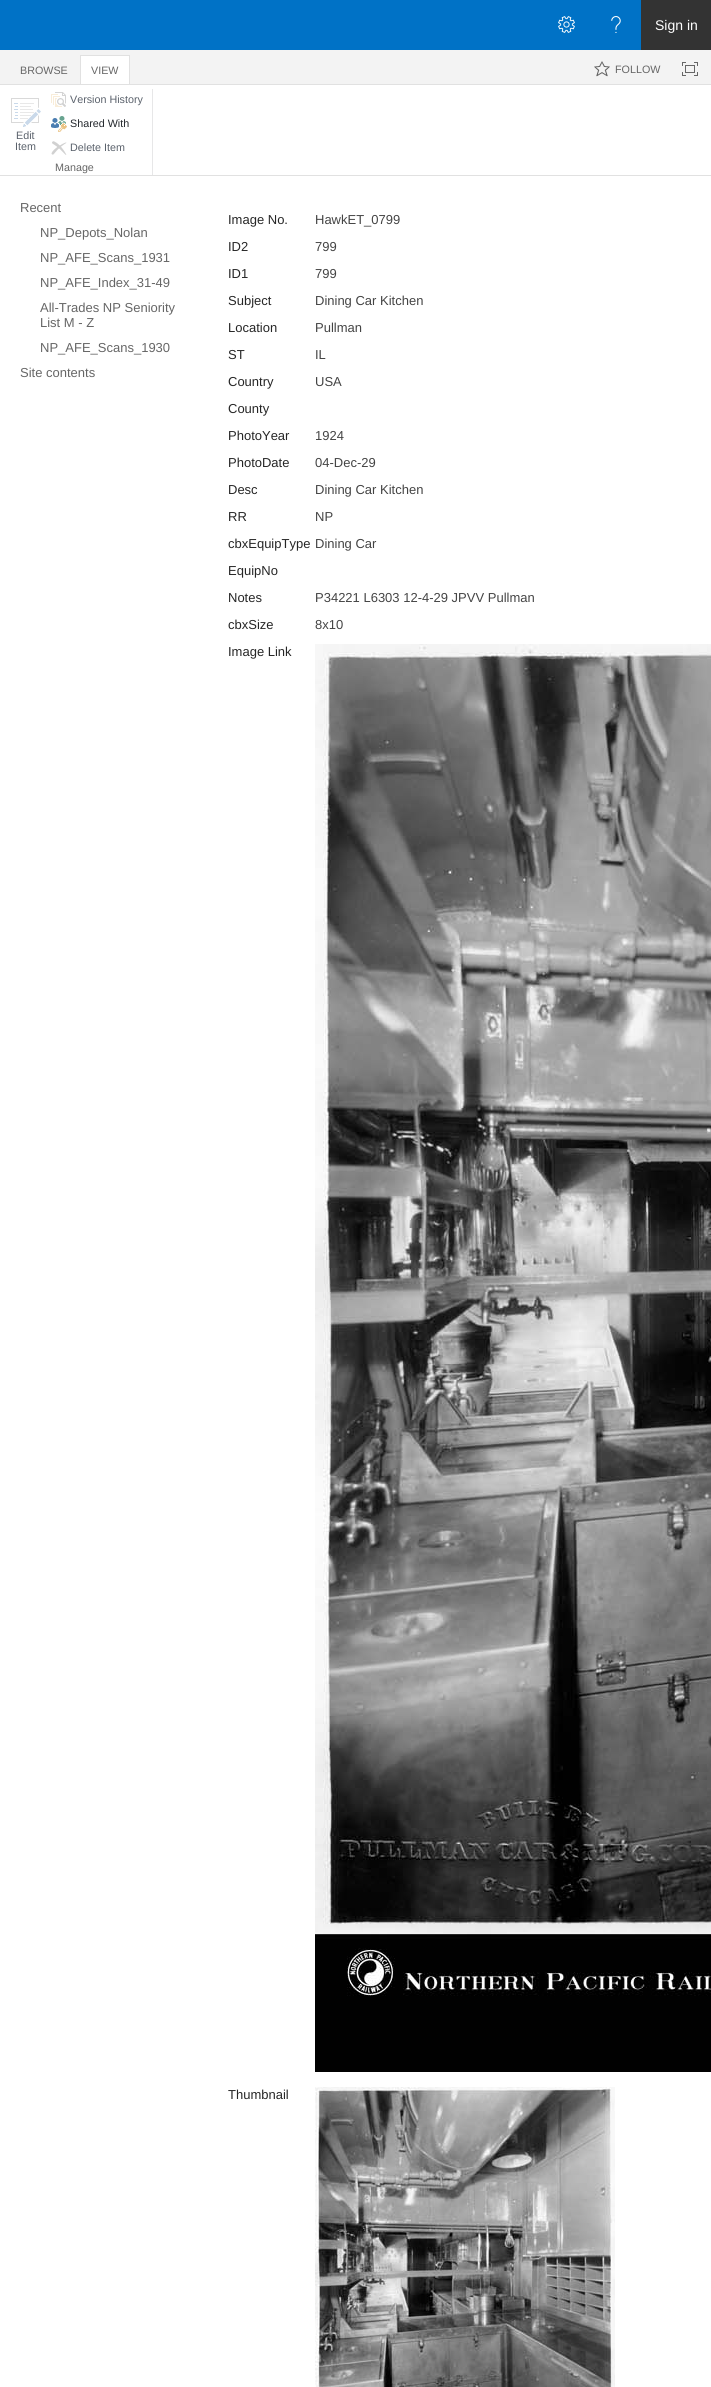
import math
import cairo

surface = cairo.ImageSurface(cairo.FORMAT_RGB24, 711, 2387)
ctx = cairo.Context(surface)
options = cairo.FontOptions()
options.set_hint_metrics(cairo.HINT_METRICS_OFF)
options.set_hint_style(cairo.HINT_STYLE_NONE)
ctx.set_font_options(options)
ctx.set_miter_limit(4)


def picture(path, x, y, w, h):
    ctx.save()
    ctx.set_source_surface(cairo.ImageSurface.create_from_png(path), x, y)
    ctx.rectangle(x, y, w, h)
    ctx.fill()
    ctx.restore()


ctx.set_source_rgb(1, 1, 1)
ctx.paint()
ctx.set_source_rgb(0, 0.447, 0.776)
ctx.rectangle(0, 0, 641, 50)
ctx.fill()
picture("img1.png", 558, 16, 17, 17)
picture("img2.png", 611, 16, 10, 17)
ctx.set_source_rgb(0.2, 0.2, 0.2)
ctx.rectangle(641, 0, 70, 50)
ctx.fill()
ctx.select_font_face("Liberation Sans")
ctx.set_font_size(14)
ctx.set_source_rgb(1, 1, 1)
ctx.move_to(655, 30)
ctx.show_text("Sign in")
ctx.set_source_rgb(0.953, 0.953, 0.953)
ctx.rectangle(0, 50, 711, 34)
ctx.fill()
ctx.set_source_rgb(0.882, 0.882, 0.882)
ctx.rectangle(0, 84, 711, 1)
ctx.fill()
ctx.set_font_size(10.75)
ctx.set_source_rgb(0.4, 0.4, 0.4)
ctx.move_to(20, 74)
ctx.show_text("BROWSE")
ctx.set_source_rgb(1, 1, 1)
ctx.rectangle(81, 56, 48, 28)
ctx.fill()
ctx.set_source_rgb(0.882, 0.882, 0.882)
ctx.rectangle(80, 55, 50, 1)
ctx.fill()
ctx.rectangle(129, 55, 1, 29)
ctx.fill()
ctx.rectangle(80, 55, 1, 29)
ctx.fill()
ctx.set_source_rgb(0.4, 0.4, 0.4)
ctx.move_to(91, 74)
ctx.show_text("VIEW")
picture("img3.png", 594, 61, 16, 16)
ctx.move_to(615, 73)
ctx.show_text("FOLLOW")
picture("img4.png", 682, 62, 16, 14)
ctx.set_source_rgb(0.882, 0.882, 0.882)
ctx.rectangle(0, 175, 711, 1)
ctx.fill()
picture("img5.png", 11, 98, 30, 29)
ctx.set_source_rgb(0.357, 0.384, 0.424)
ctx.move_to(16, 139)
ctx.show_text("Edit")
ctx.move_to(15, 150)
ctx.show_text("Item")
picture("img6.png", 51, 92, 15, 15)
ctx.move_to(70, 103)
ctx.show_text("Version History")
picture("img7.png", 51, 116, 16, 16)
ctx.set_source_rgb(0.137, 0.153, 0.173)
ctx.move_to(70, 127)
ctx.show_text("Shared With")
picture("img8.png", 51, 141, 16, 14)
ctx.set_source_rgb(0.357, 0.384, 0.424)
ctx.move_to(70, 151)
ctx.show_text("Delete Item")
ctx.set_source_rgb(0.4, 0.4, 0.4)
ctx.move_to(55, 171)
ctx.show_text("Manage")
ctx.set_source_rgb(0.906, 0.906, 0.91)
ctx.rectangle(152, 89, 1, 86)
ctx.fill()
ctx.set_font_size(13)
ctx.set_source_rgb(0.4, 0.4, 0.4)
ctx.move_to(20, 212)
ctx.show_text("Recent")
ctx.move_to(40, 237)
ctx.show_text("NP_Depots_Nolan")
ctx.move_to(40, 262)
ctx.show_text("NP_AFE_Scans_1931")
ctx.move_to(40, 287)
ctx.show_text("NP_AFE_Index_31-49")
ctx.move_to(40, 312)
ctx.show_text("All-Trades NP Seniority")
ctx.move_to(40, 327)
ctx.show_text("List M - Z")
ctx.move_to(40, 352)
ctx.show_text("NP_AFE_Scans_1930")
ctx.move_to(20, 377)
ctx.show_text("Site contents")
ctx.set_source_rgb(0.149, 0.149, 0.149)
ctx.move_to(228, 224)
ctx.show_text("Image No.")
ctx.set_source_rgb(0.267, 0.267, 0.267)
ctx.move_to(315, 224)
ctx.show_text("HawkET_0799")
ctx.set_source_rgb(0.149, 0.149, 0.149)
ctx.move_to(228, 251)
ctx.show_text("ID2")
ctx.set_source_rgb(0.267, 0.267, 0.267)
ctx.move_to(315, 251)
ctx.show_text("799")
ctx.set_source_rgb(0.149, 0.149, 0.149)
ctx.move_to(228, 278)
ctx.show_text("ID1")
ctx.set_source_rgb(0.267, 0.267, 0.267)
ctx.move_to(315, 278)
ctx.show_text("799")
ctx.set_source_rgb(0.149, 0.149, 0.149)
ctx.move_to(228, 305)
ctx.show_text("Subject")
ctx.set_source_rgb(0.267, 0.267, 0.267)
ctx.move_to(315, 305)
ctx.show_text("Dining Car Kitchen")
ctx.set_source_rgb(0.149, 0.149, 0.149)
ctx.move_to(228, 332)
ctx.show_text("Location")
ctx.set_source_rgb(0.267, 0.267, 0.267)
ctx.move_to(315, 332)
ctx.show_text("Pullman")
ctx.set_source_rgb(0.149, 0.149, 0.149)
ctx.move_to(228, 359)
ctx.show_text("ST")
ctx.set_source_rgb(0.267, 0.267, 0.267)
ctx.move_to(315, 359)
ctx.show_text("IL")
ctx.set_source_rgb(0.149, 0.149, 0.149)
ctx.move_to(228, 386)
ctx.show_text("Country")
ctx.set_source_rgb(0.267, 0.267, 0.267)
ctx.move_to(315, 386)
ctx.show_text("USA")
ctx.set_source_rgb(0.149, 0.149, 0.149)
ctx.move_to(228, 413)
ctx.show_text("County")
ctx.move_to(228, 440)
ctx.show_text("PhotoYear")
ctx.set_source_rgb(0.267, 0.267, 0.267)
ctx.move_to(315, 440)
ctx.show_text("1924")
ctx.set_source_rgb(0.149, 0.149, 0.149)
ctx.move_to(228, 467)
ctx.show_text("PhotoDate")
ctx.set_source_rgb(0.267, 0.267, 0.267)
ctx.move_to(315, 467)
ctx.show_text("04-Dec-29")
ctx.set_source_rgb(0.149, 0.149, 0.149)
ctx.move_to(228, 494)
ctx.show_text("Desc")
ctx.set_source_rgb(0.267, 0.267, 0.267)
ctx.move_to(315, 494)
ctx.show_text("Dining Car Kitchen")
ctx.set_source_rgb(0.149, 0.149, 0.149)
ctx.move_to(228, 521)
ctx.show_text("RR")
ctx.set_source_rgb(0.267, 0.267, 0.267)
ctx.move_to(315, 521)
ctx.show_text("NP")
ctx.set_source_rgb(0.149, 0.149, 0.149)
ctx.move_to(228, 548)
ctx.show_text("cbxEquipType")
ctx.set_source_rgb(0.267, 0.267, 0.267)
ctx.move_to(315, 548)
ctx.show_text("Dining Car")
ctx.set_source_rgb(0.149, 0.149, 0.149)
ctx.move_to(228, 575)
ctx.show_text("EquipNo")
ctx.move_to(228, 602)
ctx.show_text("Notes")
ctx.set_source_rgb(0.267, 0.267, 0.267)
ctx.move_to(315, 602)
ctx.show_text("P34221 L6303 12-4-29 JPVV Pullman")
ctx.set_source_rgb(0.149, 0.149, 0.149)
ctx.move_to(228, 629)
ctx.show_text("cbxSize")
ctx.set_source_rgb(0.267, 0.267, 0.267)
ctx.move_to(315, 629)
ctx.show_text("8x10")
ctx.set_source_rgb(0.149, 0.149, 0.149)
ctx.move_to(228, 656)
ctx.show_text("Image Link")
picture("img9.png", 315, 644, 396, 1428)
ctx.move_to(228, 2099)
ctx.show_text("Thumbnail")
picture("img10.png", 315, 2087, 300, 300)
surface.write_to_png("page.png")
